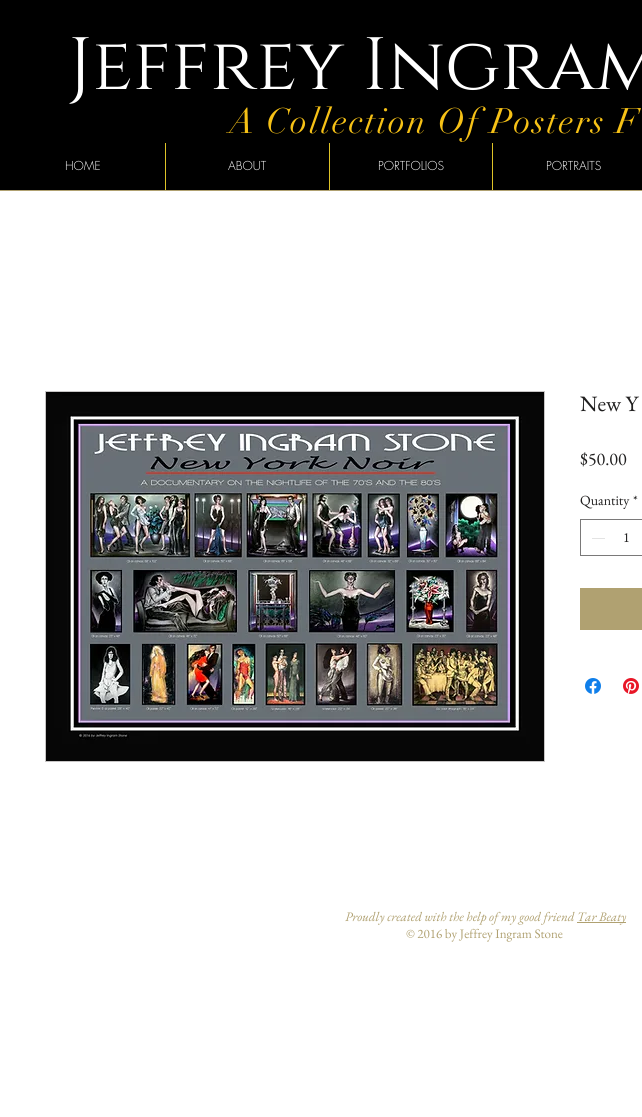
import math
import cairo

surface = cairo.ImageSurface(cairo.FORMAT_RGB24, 642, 1117)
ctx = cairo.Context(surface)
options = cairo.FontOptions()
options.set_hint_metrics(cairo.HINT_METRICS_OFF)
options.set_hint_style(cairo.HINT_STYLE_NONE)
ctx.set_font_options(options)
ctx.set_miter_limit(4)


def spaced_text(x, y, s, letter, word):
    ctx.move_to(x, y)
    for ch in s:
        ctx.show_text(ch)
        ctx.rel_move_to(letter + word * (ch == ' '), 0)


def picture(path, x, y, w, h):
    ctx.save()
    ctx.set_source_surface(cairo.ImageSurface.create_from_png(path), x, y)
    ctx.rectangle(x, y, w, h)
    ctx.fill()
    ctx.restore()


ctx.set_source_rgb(1, 1, 1)
ctx.paint()
ctx.set_source_rgb(0, 0, 0)
ctx.rectangle(0, 0, 642, 190)
ctx.fill()
ctx.select_font_face("Cinzel")
ctx.set_font_size(74)
ctx.set_source_rgb(1, 1, 1)
ctx.move_to(68, 89)
ctx.show_text("Jeffrey Ingram")
ctx.select_font_face("didot")
ctx.set_font_size(35)
ctx.set_source_rgb(0.961, 0.757, 0.086)
spaced_text(229, 133, "A Collection Of Posters F", 1.75, 0)
ctx.select_font_face("futura Light")
ctx.set_font_size(12)
ctx.set_source_rgb(1, 1, 1)
ctx.move_to(65, 170)
ctx.show_text("HOME")
ctx.set_source_rgb(0.871, 0.765, 0.157)
ctx.rectangle(165, 143, 1, 47)
ctx.fill()
ctx.set_source_rgb(1, 1, 1)
ctx.move_to(228, 170)
ctx.show_text("ABOUT")
ctx.set_source_rgb(0.871, 0.765, 0.157)
ctx.rectangle(329, 143, 1, 47)
ctx.fill()
ctx.set_source_rgb(1, 1, 1)
ctx.move_to(378, 170)
ctx.show_text("PORTFOLIOS")
ctx.set_source_rgb(0.871, 0.765, 0.157)
ctx.rectangle(492, 143, 1, 47)
ctx.fill()
ctx.set_source_rgb(1, 1, 1)
ctx.move_to(546, 170)
ctx.show_text("PORTRAITS")
ctx.set_source_rgb(0.69, 0.631, 0.443)
ctx.rectangle(0, 190, 642, 1)
ctx.fill()
ctx.rectangle(45.5, 391.5, 499, 370)
ctx.set_source_rgb(0.78, 0.773, 0.773)
ctx.set_line_width(1)
ctx.stroke()
picture("img1.png", 46, 392, 498, 369)
ctx.select_font_face("EB Garamond")
ctx.set_font_size(22)
ctx.set_source_rgb(0.129, 0.125, 0.125)
ctx.move_to(580, 411)
ctx.show_text("New Y")
ctx.set_font_size(18)
ctx.move_to(580, 465)
ctx.show_text("$50.00")
ctx.set_font_size(14)
ctx.move_to(580, 505)
ctx.show_text("Quantity")
ctx.move_to(633, 505)
ctx.show_text("*")
ctx.rectangle(580.5, 519.5, 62, 36)
ctx.set_source_rgb(0.478, 0.475, 0.475)
ctx.stroke()
ctx.set_source_rgb(0.89, 0.89, 0.89)
ctx.rectangle(592, 538, 13, 1)
ctx.fill()
ctx.set_source_rgb(0.129, 0.125, 0.125)
ctx.move_to(623, 542)
ctx.show_text("1")
ctx.set_source_rgb(0.69, 0.631, 0.443)
ctx.rectangle(580, 588, 62, 42)
ctx.fill()
picture("img2.png", 585, 678, 16, 16)
picture("img3.png", 623, 678, 16, 16)
ctx.select_font_face("EB Garamond", cairo.FONT_SLANT_ITALIC)
ctx.set_font_size(13)
ctx.move_to(345, 921)
ctx.show_text("Proudly created with the help of my good friend")
ctx.rectangle(577, 922, 49, 1)
ctx.fill()
ctx.move_to(577, 921)
ctx.show_text("Tar Beaty")
ctx.select_font_face("EB Garamond")
ctx.move_to(406, 938)
ctx.show_text("© 2016 by Jeffrey Ingram Stone")
surface.write_to_png("page.png")
